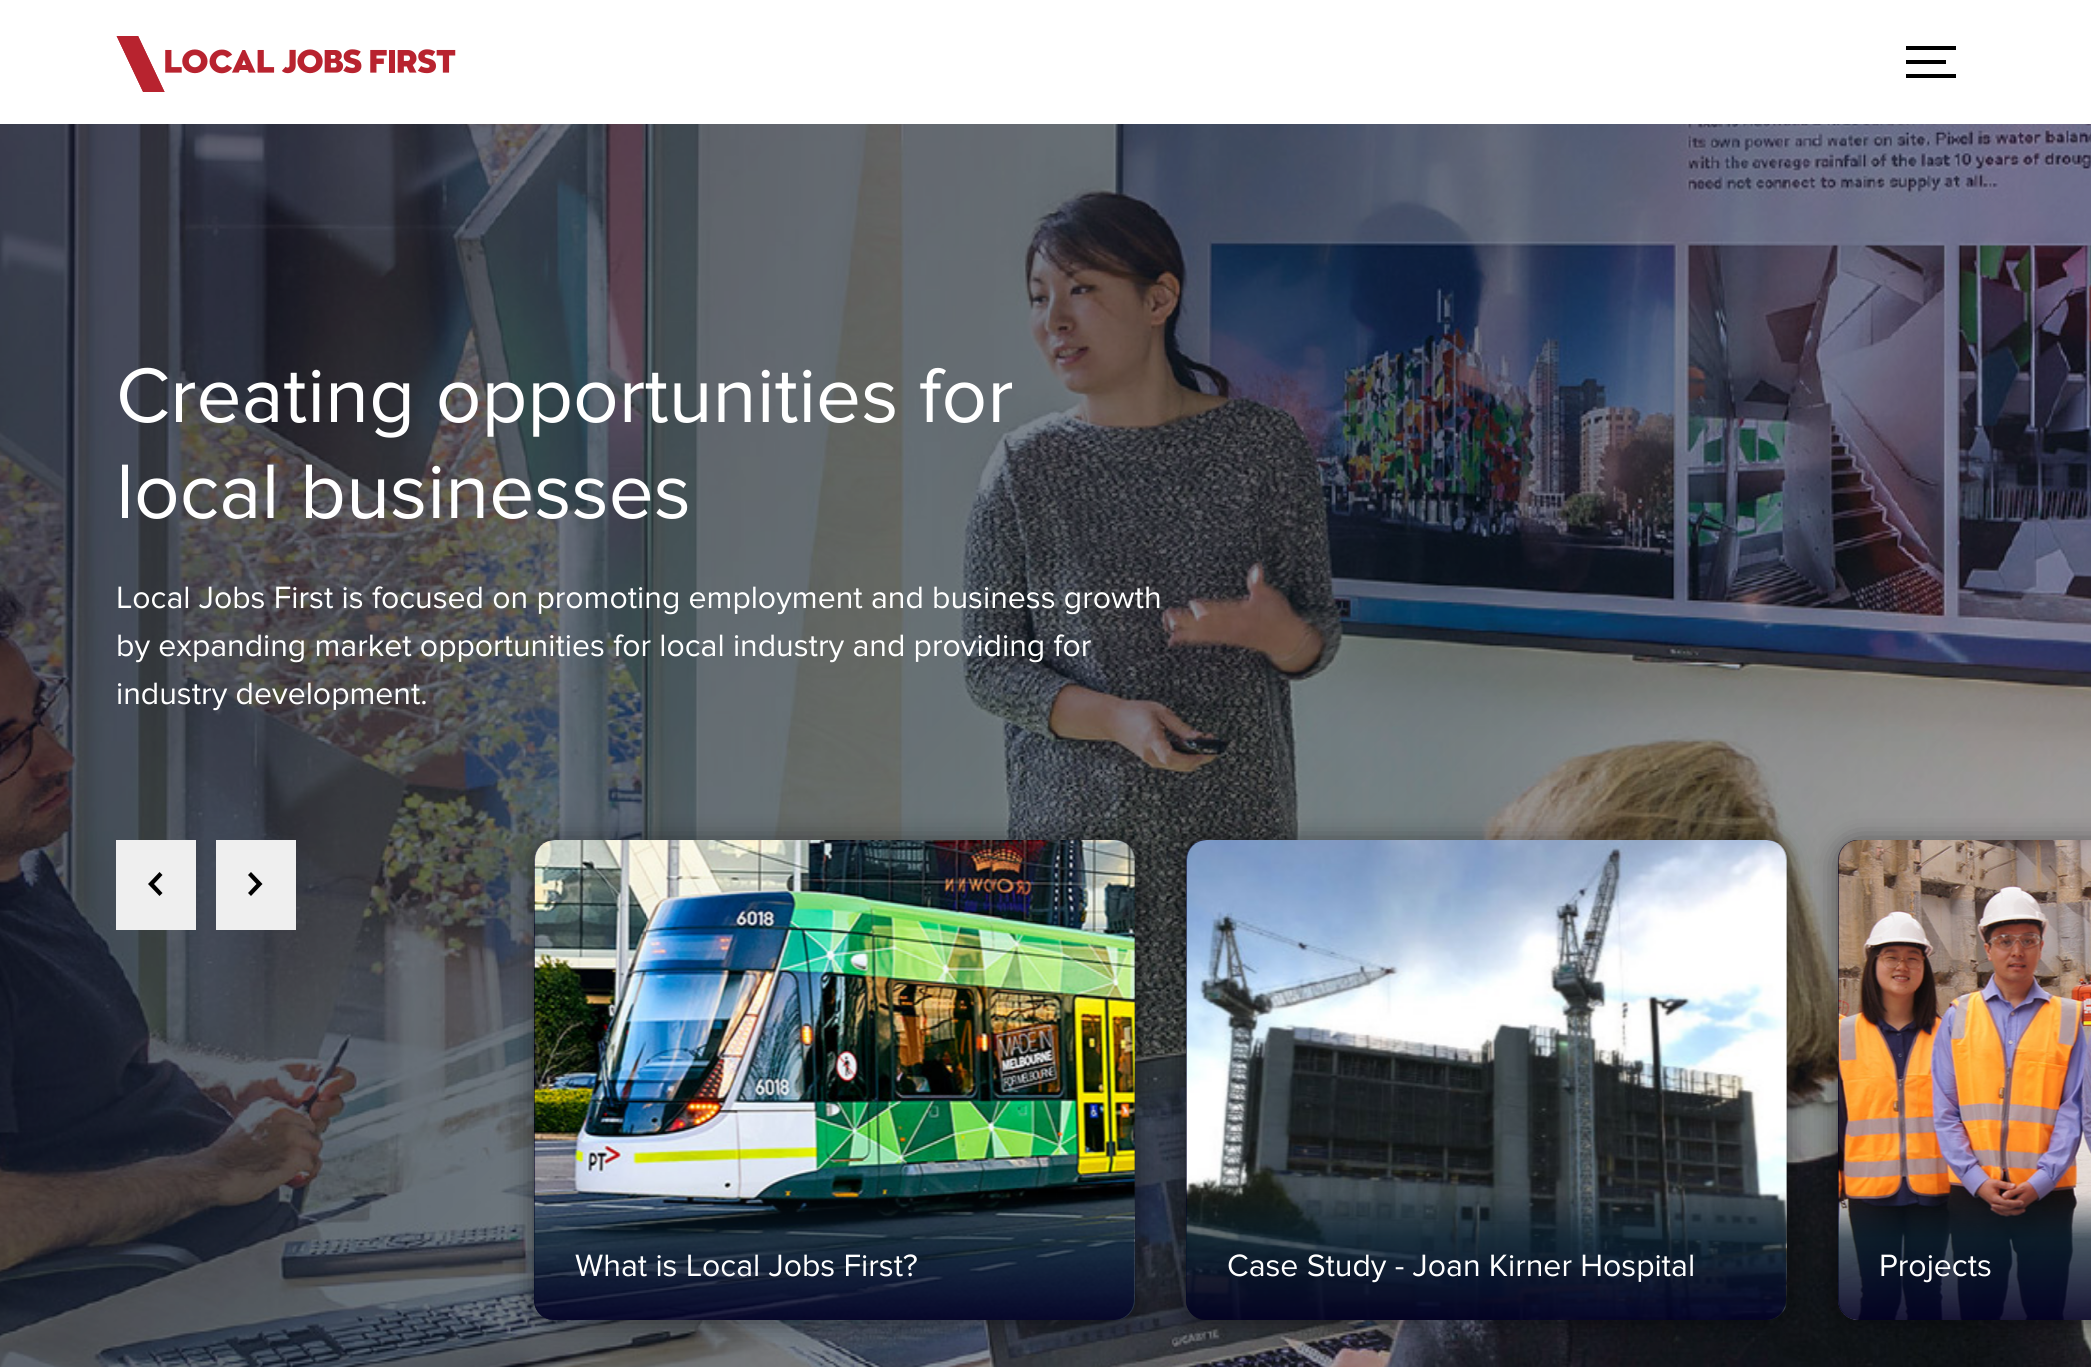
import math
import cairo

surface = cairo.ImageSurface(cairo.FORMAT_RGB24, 2091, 1367)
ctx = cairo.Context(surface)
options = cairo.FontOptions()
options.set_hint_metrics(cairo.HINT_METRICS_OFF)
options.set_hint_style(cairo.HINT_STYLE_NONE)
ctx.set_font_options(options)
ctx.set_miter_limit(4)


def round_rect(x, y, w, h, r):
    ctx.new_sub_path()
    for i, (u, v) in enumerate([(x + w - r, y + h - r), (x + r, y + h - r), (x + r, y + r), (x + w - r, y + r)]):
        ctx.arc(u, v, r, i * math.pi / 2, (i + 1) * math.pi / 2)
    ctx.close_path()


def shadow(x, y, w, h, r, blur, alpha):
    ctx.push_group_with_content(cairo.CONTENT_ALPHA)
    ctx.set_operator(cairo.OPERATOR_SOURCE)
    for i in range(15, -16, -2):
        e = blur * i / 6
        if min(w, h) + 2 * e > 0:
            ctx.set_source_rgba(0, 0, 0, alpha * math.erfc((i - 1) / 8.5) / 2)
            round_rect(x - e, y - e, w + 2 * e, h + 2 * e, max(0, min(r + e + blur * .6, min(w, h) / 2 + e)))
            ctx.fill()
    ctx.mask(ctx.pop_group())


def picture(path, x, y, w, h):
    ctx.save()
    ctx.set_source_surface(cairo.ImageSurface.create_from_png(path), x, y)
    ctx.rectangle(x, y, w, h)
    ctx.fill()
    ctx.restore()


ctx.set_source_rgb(1, 1, 1)
ctx.paint()
picture("img1.png", 116, 36, 340, 56)
ctx.set_source_rgb(0, 0, 0)
ctx.rectangle(1906, 60, 40, 4)
ctx.fill()
ctx.rectangle(1906, 46, 50, 4)
ctx.fill()
ctx.rectangle(1906, 74, 50, 4)
ctx.fill()
picture("img2.png", 0, 124, 2091, 1243)
ctx.select_font_face("Proxima Nova")
ctx.set_font_size(80)
ctx.set_source_rgb(1, 1, 1)
ctx.move_to(116, 422)
ctx.show_text("Creating opportunities for")
ctx.move_to(116, 518)
ctx.show_text("local businesses")
ctx.set_font_size(32)
ctx.move_to(116, 608)
ctx.show_text("Local Jobs First is focused on promoting employment and business growth")
ctx.move_to(116, 656)
ctx.show_text("by expanding market opportunities for local industry and providing for")
ctx.move_to(116, 704)
ctx.show_text("industry development.")
ctx.set_source_rgb(0.937, 0.937, 0.937)
ctx.rectangle(116, 840, 80, 90)
ctx.fill()
ctx.set_source_rgb(0, 0, 0)
ctx.new_path()
ctx.move_to(148, 884)
ctx.line_to(159.5, 896)
ctx.line_to(162.5, 893)
ctx.line_to(154, 884)
ctx.line_to(162.5, 875)
ctx.line_to(159.5, 872)
ctx.line_to(149.5, 882.5)
ctx.close_path()
ctx.fill()
ctx.set_source_rgb(0.937, 0.937, 0.937)
ctx.rectangle(216, 840, 80, 90)
ctx.fill()
ctx.set_source_rgb(0, 0, 0)
ctx.new_path()
ctx.move_to(262.5, 884)
ctx.line_to(251, 872)
ctx.line_to(248, 875)
ctx.line_to(256.5, 884)
ctx.line_to(248, 893)
ctx.line_to(251, 896)
ctx.line_to(261, 885.5)
ctx.close_path()
ctx.fill()
ctx.set_source_rgb(0, 0, 0)
shadow(534, 842, 600, 480, 20, 13, 0.5)
ctx.set_source_rgb(0.008, 0, 0.141)
round_rect(534, 840, 600, 480, 20)
ctx.fill()
picture("img3.png", 534, 840, 601, 480)
gradient = cairo.LinearGradient(835, 1320, 835, 1192)
gradient.add_color_stop_rgba(0, 0.008, 0, 0.141, 0.9)
gradient.add_color_stop_rgba(0.63, 0.027, 0.122, 0.192, 0.7)
gradient.add_color_stop_rgba(1, 0.027, 0.122, 0.192, 0)
ctx.set_source(gradient)
ctx.new_path()
ctx.move_to(534, 1192)
ctx.line_to(1134, 1192)
ctx.line_to(1134, 1300)
ctx.curve_to(1134, 1311, 1125, 1320, 1114, 1320)
ctx.line_to(554, 1320)
ctx.curve_to(543, 1320, 534, 1311, 534, 1300)
ctx.close_path()
ctx.fill()
ctx.set_source_rgb(1, 1, 1)
ctx.move_to(575, 1276)
ctx.show_text("What is Local Jobs First?")
ctx.set_source_rgb(0, 0, 0)
shadow(1186, 842, 600, 480, 20, 13, 0.5)
ctx.set_source_rgb(0.008, 0, 0.141)
round_rect(1186, 840, 600, 480, 20)
ctx.fill()
picture("img4.png", 1186, 840, 601, 480)
gradient = cairo.LinearGradient(1487, 1320, 1487, 1192)
gradient.add_color_stop_rgba(0, 0.008, 0, 0.141, 0.9)
gradient.add_color_stop_rgba(0.63, 0.027, 0.122, 0.192, 0.7)
gradient.add_color_stop_rgba(1, 0.027, 0.122, 0.192, 0)
ctx.set_source(gradient)
ctx.new_path()
ctx.move_to(1186, 1192)
ctx.line_to(1786, 1192)
ctx.line_to(1786, 1300)
ctx.curve_to(1786, 1311, 1777, 1320, 1766, 1320)
ctx.line_to(1206, 1320)
ctx.curve_to(1195, 1320, 1186, 1311, 1186, 1300)
ctx.close_path()
ctx.fill()
ctx.set_source_rgb(1, 1, 1)
ctx.move_to(1227, 1276)
ctx.show_text("Case Study - Joan Kirner Hospital")
ctx.set_source_rgb(0, 0, 0)
shadow(1838, 842, 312, 480, 20, 13, 0.5)
ctx.set_source_rgb(0.008, 0, 0.141)
ctx.new_path()
ctx.move_to(1858, 840)
ctx.line_to(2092, 840)
ctx.line_to(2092, 1320)
ctx.line_to(1858, 1320)
ctx.curve_to(1847, 1320, 1838, 1311, 1838, 1300)
ctx.line_to(1838, 860)
ctx.curve_to(1838, 849, 1847, 840, 1858, 840)
ctx.close_path()
ctx.fill()
picture("img5.png", 1838, 840, 253, 480)
gradient = cairo.LinearGradient(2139, 1320, 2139, 1192)
gradient.add_color_stop_rgba(0, 0.008, 0, 0.141, 0.9)
gradient.add_color_stop_rgba(0.63, 0.027, 0.122, 0.192, 0.7)
gradient.add_color_stop_rgba(1, 0.027, 0.122, 0.192, 0)
ctx.set_source(gradient)
ctx.new_path()
ctx.move_to(1838, 1192)
ctx.line_to(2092, 1192)
ctx.line_to(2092, 1320)
ctx.line_to(1858, 1320)
ctx.curve_to(1847, 1320, 1838, 1311, 1838, 1300)
ctx.close_path()
ctx.fill()
ctx.set_source_rgb(1, 1, 1)
ctx.move_to(1879, 1276)
ctx.show_text("Projects")
surface.write_to_png("page.png")
